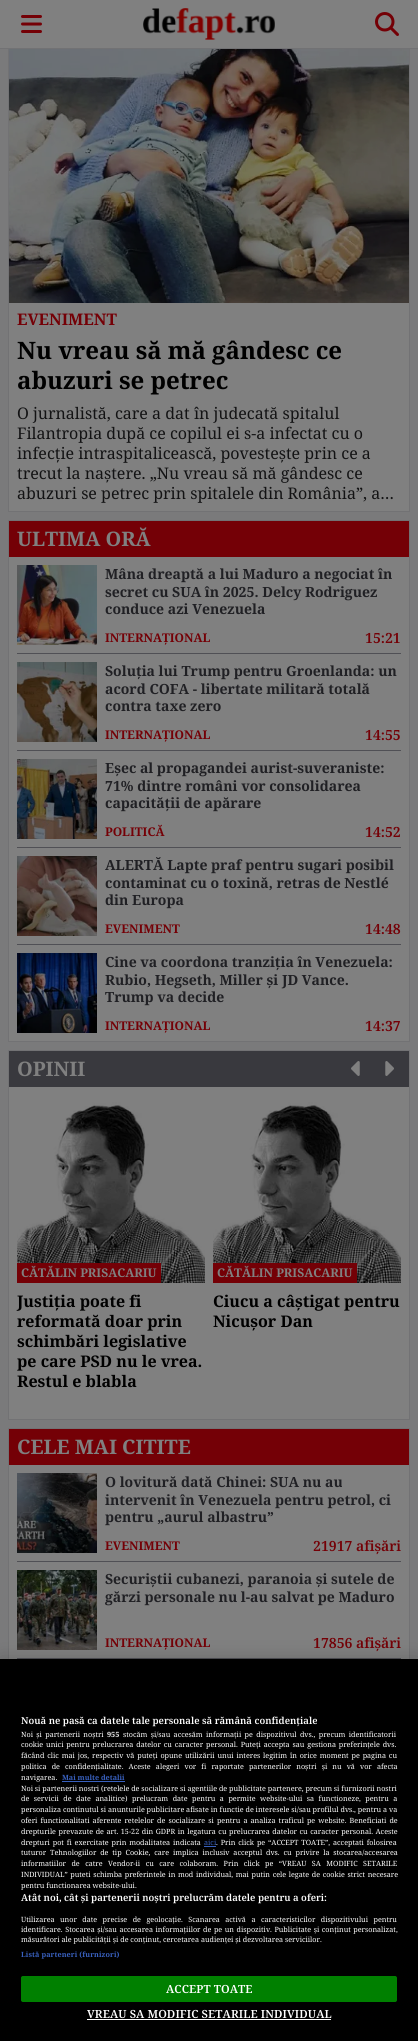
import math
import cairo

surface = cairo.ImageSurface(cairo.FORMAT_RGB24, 418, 2041)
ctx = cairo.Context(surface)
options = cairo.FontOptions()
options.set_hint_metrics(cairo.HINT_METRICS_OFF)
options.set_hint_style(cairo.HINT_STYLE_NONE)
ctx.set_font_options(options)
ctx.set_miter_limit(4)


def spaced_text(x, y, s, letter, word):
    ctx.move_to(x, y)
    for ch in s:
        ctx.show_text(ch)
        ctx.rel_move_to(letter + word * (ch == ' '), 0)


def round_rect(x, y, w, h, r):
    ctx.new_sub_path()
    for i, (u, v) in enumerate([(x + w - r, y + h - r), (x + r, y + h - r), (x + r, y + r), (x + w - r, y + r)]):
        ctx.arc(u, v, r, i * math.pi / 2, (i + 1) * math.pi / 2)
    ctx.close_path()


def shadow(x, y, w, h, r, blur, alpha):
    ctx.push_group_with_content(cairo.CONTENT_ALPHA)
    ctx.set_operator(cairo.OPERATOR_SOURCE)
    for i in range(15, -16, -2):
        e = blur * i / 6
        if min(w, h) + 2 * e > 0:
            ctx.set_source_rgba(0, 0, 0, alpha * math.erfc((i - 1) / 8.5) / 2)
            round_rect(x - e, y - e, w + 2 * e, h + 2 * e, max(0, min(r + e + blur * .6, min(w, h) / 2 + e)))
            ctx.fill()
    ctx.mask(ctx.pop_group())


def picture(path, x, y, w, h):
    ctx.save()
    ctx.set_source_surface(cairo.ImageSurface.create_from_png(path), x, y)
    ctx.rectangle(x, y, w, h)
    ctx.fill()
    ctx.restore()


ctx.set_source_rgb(0.478, 0.478, 0.482)
ctx.paint()
ctx.set_source_rgb(0.502, 0.502, 0.502)
ctx.rectangle(9, 303, 400, 208)
ctx.fill()
ctx.rectangle(8.5, 2.5, 401, 509)
ctx.set_source_rgb(0.447, 0.447, 0.455)
ctx.set_line_width(1)
ctx.stroke()
ctx.set_source_rgb(0.502, 0.502, 0.502)
ctx.rectangle(0, 0, 418, 48)
ctx.fill()
ctx.set_source_rgb(0.447, 0.447, 0.455)
ctx.rectangle(0, 48, 418, 1)
ctx.fill()
picture("img1.png", 21, 15, 21, 18)
picture("img2.png", 143, 8, 132, 32)
picture("img3.png", 375, 12, 24, 24)
picture("img4.png", 9, 49, 400, 254)
ctx.select_font_face("Noto Serif", cairo.FONT_SLANT_NORMAL, cairo.FONT_WEIGHT_BOLD)
ctx.set_font_size(16)
ctx.set_source_rgb(0.455, 0, 0.024)
ctx.move_to(17, 325)
ctx.show_text("EVENIMENT")
ctx.set_font_size(24)
ctx.set_source_rgb(0, 0, 0)
ctx.move_to(17, 359)
ctx.show_text("Nu vreau să mă gândesc ce")
ctx.move_to(17, 389)
ctx.show_text("abuzuri se petrec")
ctx.select_font_face("Noto Serif")
ctx.set_font_size(16)
ctx.set_source_rgb(0.078, 0.078, 0.082)
ctx.move_to(17, 419)
ctx.show_text("O jurnalistă, care a dat în judecată spitalul")
ctx.move_to(17, 439)
ctx.show_text("Filantropia după ce copilul ei s-a infectat cu o")
ctx.move_to(17, 459)
ctx.show_text("infecție intraspitalicească, povestește prin ce a")
ctx.move_to(17, 479)
ctx.show_text("trecut la naștere. „Nu vreau să mă gândesc ce")
ctx.move_to(17, 499)
ctx.show_text("abuzuri se petrec prin spitalele din România”, a…")
ctx.set_source_rgb(0.502, 0.502, 0.502)
ctx.rectangle(9, 557, 400, 484)
ctx.fill()
ctx.rectangle(8.5, 520.5, 401, 521)
ctx.set_source_rgb(0.447, 0.447, 0.455)
ctx.stroke()
ctx.set_source_rgb(0.455, 0, 0.024)
ctx.rectangle(9, 521, 400, 36)
ctx.fill()
ctx.select_font_face("Noto Serif", cairo.FONT_SLANT_NORMAL, cairo.FONT_WEIGHT_BOLD)
ctx.set_font_size(20)
ctx.set_source_rgb(0.502, 0.502, 0.502)
ctx.move_to(17, 546)
ctx.show_text("ULTIMA ORĂ")
ctx.set_source_rgb(0.314, 0.314, 0.333)
ctx.rectangle(17, 653, 384, 1)
ctx.fill()
picture("img5.png", 17, 565, 80, 80)
ctx.set_font_size(14)
ctx.set_source_rgb(0.125, 0.125, 0.141)
ctx.move_to(105, 579)
ctx.show_text("Mâna dreaptă a lui Maduro a negociat în")
ctx.move_to(105, 597)
ctx.show_text("secret cu SUA în 2025. Delcy Rodriguez")
ctx.move_to(105, 614)
ctx.show_text("conduce azi Venezuela")
ctx.set_font_size(12)
ctx.set_source_rgb(0.455, 0, 0.024)
ctx.move_to(105, 642)
ctx.show_text("INTERNAȚIONAL")
ctx.select_font_face("Noto Serif SemiBold")
ctx.set_font_size(14)
ctx.move_to(365, 643)
ctx.show_text("15:21")
ctx.set_source_rgb(0.314, 0.314, 0.333)
ctx.rectangle(17, 750, 384, 1)
ctx.fill()
picture("img6.png", 17, 662, 80, 80)
ctx.select_font_face("Noto Serif", cairo.FONT_SLANT_NORMAL, cairo.FONT_WEIGHT_BOLD)
ctx.set_source_rgb(0.125, 0.125, 0.141)
ctx.move_to(105, 676)
ctx.show_text("Soluția lui Trump pentru Groenlanda: un")
ctx.move_to(105, 694)
ctx.show_text("acord COFA - libertate militară totală")
ctx.move_to(105, 711)
ctx.show_text("contra taxe zero")
ctx.set_font_size(12)
ctx.set_source_rgb(0.455, 0, 0.024)
ctx.move_to(105, 739)
ctx.show_text("INTERNAȚIONAL")
ctx.select_font_face("Noto Serif SemiBold")
ctx.set_font_size(14)
ctx.move_to(365, 740)
ctx.show_text("14:55")
ctx.set_source_rgb(0.314, 0.314, 0.333)
ctx.rectangle(17, 847, 384, 1)
ctx.fill()
picture("img7.png", 17, 759, 80, 80)
ctx.select_font_face("Noto Serif", cairo.FONT_SLANT_NORMAL, cairo.FONT_WEIGHT_BOLD)
ctx.set_source_rgb(0.125, 0.125, 0.141)
ctx.move_to(105, 773)
ctx.show_text("Eșec al propagandei aurist-suveraniste:")
ctx.move_to(105, 791)
ctx.show_text("71% dintre români vor consolidarea")
ctx.move_to(105, 808)
ctx.show_text("capacității de apărare")
ctx.set_font_size(12)
ctx.set_source_rgb(0.455, 0, 0.024)
ctx.move_to(105, 836)
ctx.show_text("POLITICĂ")
ctx.select_font_face("Noto Serif SemiBold")
ctx.set_font_size(14)
ctx.move_to(365, 837)
ctx.show_text("14:52")
ctx.set_source_rgb(0.314, 0.314, 0.333)
ctx.rectangle(17, 944, 384, 1)
ctx.fill()
picture("img8.png", 17, 856, 80, 80)
ctx.select_font_face("Noto Serif", cairo.FONT_SLANT_NORMAL, cairo.FONT_WEIGHT_BOLD)
ctx.set_source_rgb(0.125, 0.125, 0.141)
ctx.move_to(105, 870)
ctx.show_text("ALERTĂ Lapte praf pentru sugari posibil")
ctx.move_to(105, 888)
ctx.show_text("contaminat cu o toxină, retras de Nestlé")
ctx.move_to(105, 905)
ctx.show_text("din Europa")
ctx.set_font_size(12)
ctx.set_source_rgb(0.455, 0, 0.024)
ctx.move_to(105, 933)
ctx.show_text("EVENIMENT")
ctx.select_font_face("Noto Serif SemiBold")
ctx.set_font_size(14)
ctx.move_to(365, 934)
ctx.show_text("14:48")
picture("img9.png", 17, 953, 80, 80)
ctx.select_font_face("Noto Serif", cairo.FONT_SLANT_NORMAL, cairo.FONT_WEIGHT_BOLD)
ctx.set_source_rgb(0.125, 0.125, 0.141)
ctx.move_to(105, 967)
ctx.show_text("Cine va coordona tranziția în Venezuela:")
ctx.move_to(105, 985)
ctx.show_text("Rubio, Hegseth, Miller și JD Vance.")
ctx.move_to(105, 1002)
ctx.show_text("Trump va decide")
ctx.set_font_size(12)
ctx.set_source_rgb(0.455, 0, 0.024)
ctx.move_to(105, 1030)
ctx.show_text("INTERNAȚIONAL")
ctx.select_font_face("Noto Serif SemiBold")
ctx.set_font_size(14)
ctx.move_to(365, 1031)
ctx.show_text("14:37")
ctx.set_source_rgb(0.502, 0.502, 0.502)
ctx.rectangle(9, 1087, 400, 332)
ctx.fill()
ctx.rectangle(8.5, 1050.5, 401, 369)
ctx.set_source_rgb(0.447, 0.447, 0.455)
ctx.stroke()
ctx.set_source_rgb(0.224, 0.224, 0.243)
ctx.rectangle(9, 1051, 400, 36)
ctx.fill()
ctx.select_font_face("Noto Serif", cairo.FONT_SLANT_NORMAL, cairo.FONT_WEIGHT_BOLD)
ctx.set_font_size(20)
ctx.set_source_rgb(0.502, 0.502, 0.502)
ctx.move_to(17, 1076)
ctx.show_text("OPINII")
picture("img10.png", 351, 1061, 9, 15)
picture("img11.png", 385, 1061, 9, 15)
picture("img12.png", 17, 1095, 188, 188)
ctx.set_source_rgb(0.455, 0, 0.024)
ctx.rectangle(17, 1263, 144, 20)
ctx.fill()
ctx.set_font_size(12)
ctx.set_source_rgb(0.502, 0.502, 0.502)
ctx.move_to(21, 1277)
ctx.show_text("CĂTĂLIN PRISACARIU")
ctx.set_font_size(16)
ctx.set_source_rgb(0, 0, 0)
ctx.move_to(17, 1307)
ctx.show_text("Justiția poate fi")
ctx.move_to(17, 1327)
ctx.show_text("reformată doar prin")
ctx.move_to(17, 1347)
ctx.show_text("schimbări legislative")
ctx.move_to(17, 1367)
ctx.show_text("pe care PSD nu le vrea.")
ctx.move_to(17, 1387)
ctx.show_text("Restul e blabla")
picture("img12.png", 213, 1095, 188, 188)
ctx.set_source_rgb(0.455, 0, 0.024)
ctx.rectangle(213, 1263, 144, 20)
ctx.fill()
ctx.set_font_size(12)
ctx.set_source_rgb(0.502, 0.502, 0.502)
ctx.move_to(217, 1277)
ctx.show_text("CĂTĂLIN PRISACARIU")
ctx.set_font_size(16)
ctx.set_source_rgb(0, 0, 0)
ctx.move_to(213, 1307)
ctx.show_text("Ciucu a câștigat pentru")
ctx.move_to(213, 1327)
ctx.show_text("Nicușor Dan")
ctx.set_source_rgb(0.502, 0.502, 0.502)
ctx.rectangle(9, 1465, 400, 194)
ctx.fill()
ctx.rectangle(8.5, 1428.5, 401, 521)
ctx.set_source_rgb(0.447, 0.447, 0.455)
ctx.stroke()
ctx.set_source_rgb(0.455, 0, 0.024)
ctx.rectangle(9, 1429, 400, 36)
ctx.fill()
ctx.set_font_size(20)
ctx.set_source_rgb(0.502, 0.502, 0.502)
ctx.move_to(17, 1454)
ctx.show_text("CELE MAI CITITE")
ctx.set_source_rgb(0.314, 0.314, 0.333)
ctx.rectangle(17, 1561, 384, 1)
ctx.fill()
picture("img13.png", 17, 1473, 80, 80)
ctx.set_font_size(14)
ctx.set_source_rgb(0.125, 0.125, 0.141)
ctx.move_to(105, 1487)
ctx.show_text("O lovitură dată Chinei: SUA nu au")
ctx.move_to(105, 1505)
ctx.show_text("intervenit în Venezuela pentru petrol, ci")
ctx.move_to(105, 1522)
ctx.show_text("pentru „aurul albastru”")
ctx.set_font_size(12)
ctx.set_source_rgb(0.455, 0, 0.024)
ctx.move_to(105, 1550)
ctx.show_text("EVENIMENT")
ctx.select_font_face("Noto Serif SemiBold")
ctx.set_font_size(14)
ctx.move_to(313, 1551)
ctx.show_text("21917 afișări")
ctx.set_source_rgb(0.314, 0.314, 0.333)
ctx.rectangle(17, 1658, 384, 1)
ctx.fill()
picture("img14.png", 17, 1570, 80, 80)
ctx.select_font_face("Noto Serif", cairo.FONT_SLANT_NORMAL, cairo.FONT_WEIGHT_BOLD)
ctx.set_source_rgb(0.125, 0.125, 0.141)
ctx.move_to(105, 1584)
ctx.show_text("Securiștii cubanezi, paranoia și sutele de")
ctx.move_to(105, 1602)
ctx.show_text("gărzi personale nu l-au salvat pe Maduro")
ctx.set_font_size(12)
ctx.set_source_rgb(0.455, 0, 0.024)
ctx.move_to(105, 1647)
ctx.show_text("INTERNAȚIONAL")
ctx.select_font_face("Noto Serif SemiBold")
ctx.set_font_size(14)
ctx.move_to(313, 1648)
ctx.show_text("17856 afișări")
ctx.set_source_rgb(0, 0, 0)
shadow(0, 1659, 418, 382, 0, 9, 0.2)
ctx.set_source_rgb(0, 0, 0)
ctx.rectangle(0, 1659, 418, 382)
ctx.fill()
ctx.set_font_size(9.6)
ctx.set_source_rgb(1, 1, 1)
ctx.move_to(21, 1724)
ctx.show_text("Nouă ne pasă ca datele tale personale să rămână confidențiale")
ctx.select_font_face("Noto Serif")
ctx.set_font_size(7.2)
spaced_text(21, 1737, "Noi și partenerii noștri", 0, 1.5)
ctx.select_font_face("Noto Serif", cairo.FONT_SLANT_NORMAL, cairo.FONT_WEIGHT_BOLD)
ctx.move_to(107, 1737)
ctx.show_text("955")
ctx.select_font_face("Noto Serif")
spaced_text(123, 1737, "stocăm și/sau accesăm informații pe dispozitivul dvs., precum identificatorii", 0, 1.5)
spaced_text(21, 1747, "cookie unici pentru prelucrarea datelor cu caracter personal. Puteți accepta sau gestiona preferințele dvs.", 0, 1)
spaced_text(21, 1758, "făcând clic mai jos, respectiv vă puteți opune utilizării unui interes legitim în orice moment pe pagina cu", 0, 1)
spaced_text(21, 1769, "politica de confidențialitate. Aceste alegeri vor fi raportate partenerilor noștri și nu vă vor afecta", 0, 3.25)
ctx.move_to(21, 1780)
ctx.show_text("navigarea.")
ctx.select_font_face("Noto Serif", cairo.FONT_SLANT_NORMAL, cairo.FONT_WEIGHT_BOLD)
ctx.set_source_rgb(0.22, 0.376, 0.745)
ctx.move_to(62, 1780)
ctx.show_text("Mai multe detalii")
ctx.rectangle(62, 1781, 63, 1)
ctx.fill()
ctx.select_font_face("Noto Serif")
ctx.set_source_rgb(1, 1, 1)
ctx.move_to(21, 1791)
ctx.show_text("Noi si partenerii nostri (retelele de socializare si agentiile de publicitate partenere, precum si furnizorii nostri")
spaced_text(21, 1801, "de servicii de date analitice) prelucram date pentru a permite website-ului sa functioneze, pentru a", 0, 2.6)
ctx.move_to(21, 1812)
ctx.show_text("personaliza continutul si anunturile publicitare afisate in functie de interesele si/sau profilul dvs., pentru a va")
spaced_text(21, 1823, "oferi functionalitati aferente retelelor de socializare si pentru a analiza traficul pe website. Beneficiati de", 0, 1.2)
spaced_text(21, 1834, "drepturile prevazute de art. 15-22 din GDPR in legatura cu prelucrarea datelor cu caracter personal. Aceste", 0, 0.7)
spaced_text(21, 1845, "drepturi pot fi exercitate prin modalitatea indicata", 0, 1)
ctx.set_source_rgb(0.22, 0.376, 0.745)
ctx.move_to(204, 1845)
ctx.show_text("aici")
ctx.rectangle(204, 1846, 12, 1)
ctx.fill()
ctx.set_source_rgb(1, 1, 1)
spaced_text(216, 1845, ". Prin click pe “ACCEPT TOATE”, acceptati folosirea", 0, 1)
spaced_text(21, 1855, "tuturor Tehnologiilor de tip Cookie, care implica inclusiv acceptul dvs. cu privire la stocarea/accesarea", 0, 2)
spaced_text(21, 1866, "informatiilor de catre Vendor-ii cu care colaboram. Prin click pe “VREAU SA MODIFIC SETARILE", 0, 3.6)
spaced_text(21, 1877, "INDIVIDUAL” puteti schimba preferintele in mod individual, mai putin cele legate de cookie strict necesare", 0, 0.75)
ctx.move_to(21, 1888)
ctx.show_text("pentru functionarea website-ului.")
ctx.select_font_face("Noto Serif SemiBold")
ctx.set_font_size(9.6)
ctx.move_to(21, 1901)
ctx.show_text("Atât noi, cât și partenerii noștri prelucrăm datele pentru a oferi:")
ctx.select_font_face("Noto Serif")
ctx.set_font_size(7.2)
spaced_text(21, 1922, "Utilizarea unor date precise de geolocație. Scanarea activă a caracteristicilor dispozitivului pentru", 0, 3.6)
spaced_text(21, 1932, "identificare. Stocarea și/sau accesarea informațiilor de pe un dispozitiv. Publicitate și conținut personalizat,", 0, 0.7)
ctx.move_to(21, 1942)
ctx.show_text("măsurători ale publicității și de conținut, cercetarea audienței și dezvoltarea serviciilor.")
ctx.select_font_face("Noto Serif", cairo.FONT_SLANT_NORMAL, cairo.FONT_WEIGHT_BOLD)
ctx.set_source_rgb(0.22, 0.376, 0.745)
spaced_text(21, 1957, "Listă parteneri (furnizori)", 0.1, 0)
ctx.set_source_rgb(0, 0.502, 0)
round_rect(21.5, 1976.5, 375, 25, 1.5)
ctx.fill_preserve()
ctx.stroke()
ctx.select_font_face("Noto Serif SemiBold")
ctx.set_font_size(11.2)
ctx.set_source_rgb(1, 1, 1)
spaced_text(166, 1993, "ACCEPT TOATE", 0.1, 0)
spaced_text(87, 2018, "VREAU SA MODIFIC SETARILE INDIVIDUAL", 0.1, 0)
ctx.rectangle(87, 2019, 244, 1)
ctx.fill()
surface.write_to_png("page.png")
